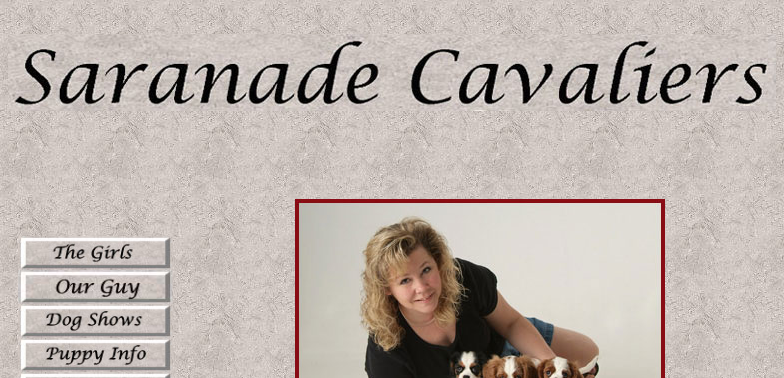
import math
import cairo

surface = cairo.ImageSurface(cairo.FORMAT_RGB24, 784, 378)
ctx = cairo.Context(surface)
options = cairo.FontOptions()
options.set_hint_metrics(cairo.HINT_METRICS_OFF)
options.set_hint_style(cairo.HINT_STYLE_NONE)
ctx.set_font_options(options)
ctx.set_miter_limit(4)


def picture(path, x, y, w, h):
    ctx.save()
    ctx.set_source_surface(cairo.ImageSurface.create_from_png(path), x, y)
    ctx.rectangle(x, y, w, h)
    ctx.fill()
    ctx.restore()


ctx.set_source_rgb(1, 1, 1)
ctx.paint()
picture("img1.png", 0, 0, 784, 378)
picture("img2.png", 8, 34, 768, 77)
picture("img3.png", 18, 236, 155, 34)
picture("img4.png", 18, 270, 155, 34)
picture("img5.png", 18, 304, 155, 34)
picture("img6.png", 18, 338, 155, 34)
picture("img7.png", 18, 372, 155, 6)
picture("img8.png", 295, 199, 370, 179)
surface.write_to_png("page.png")
